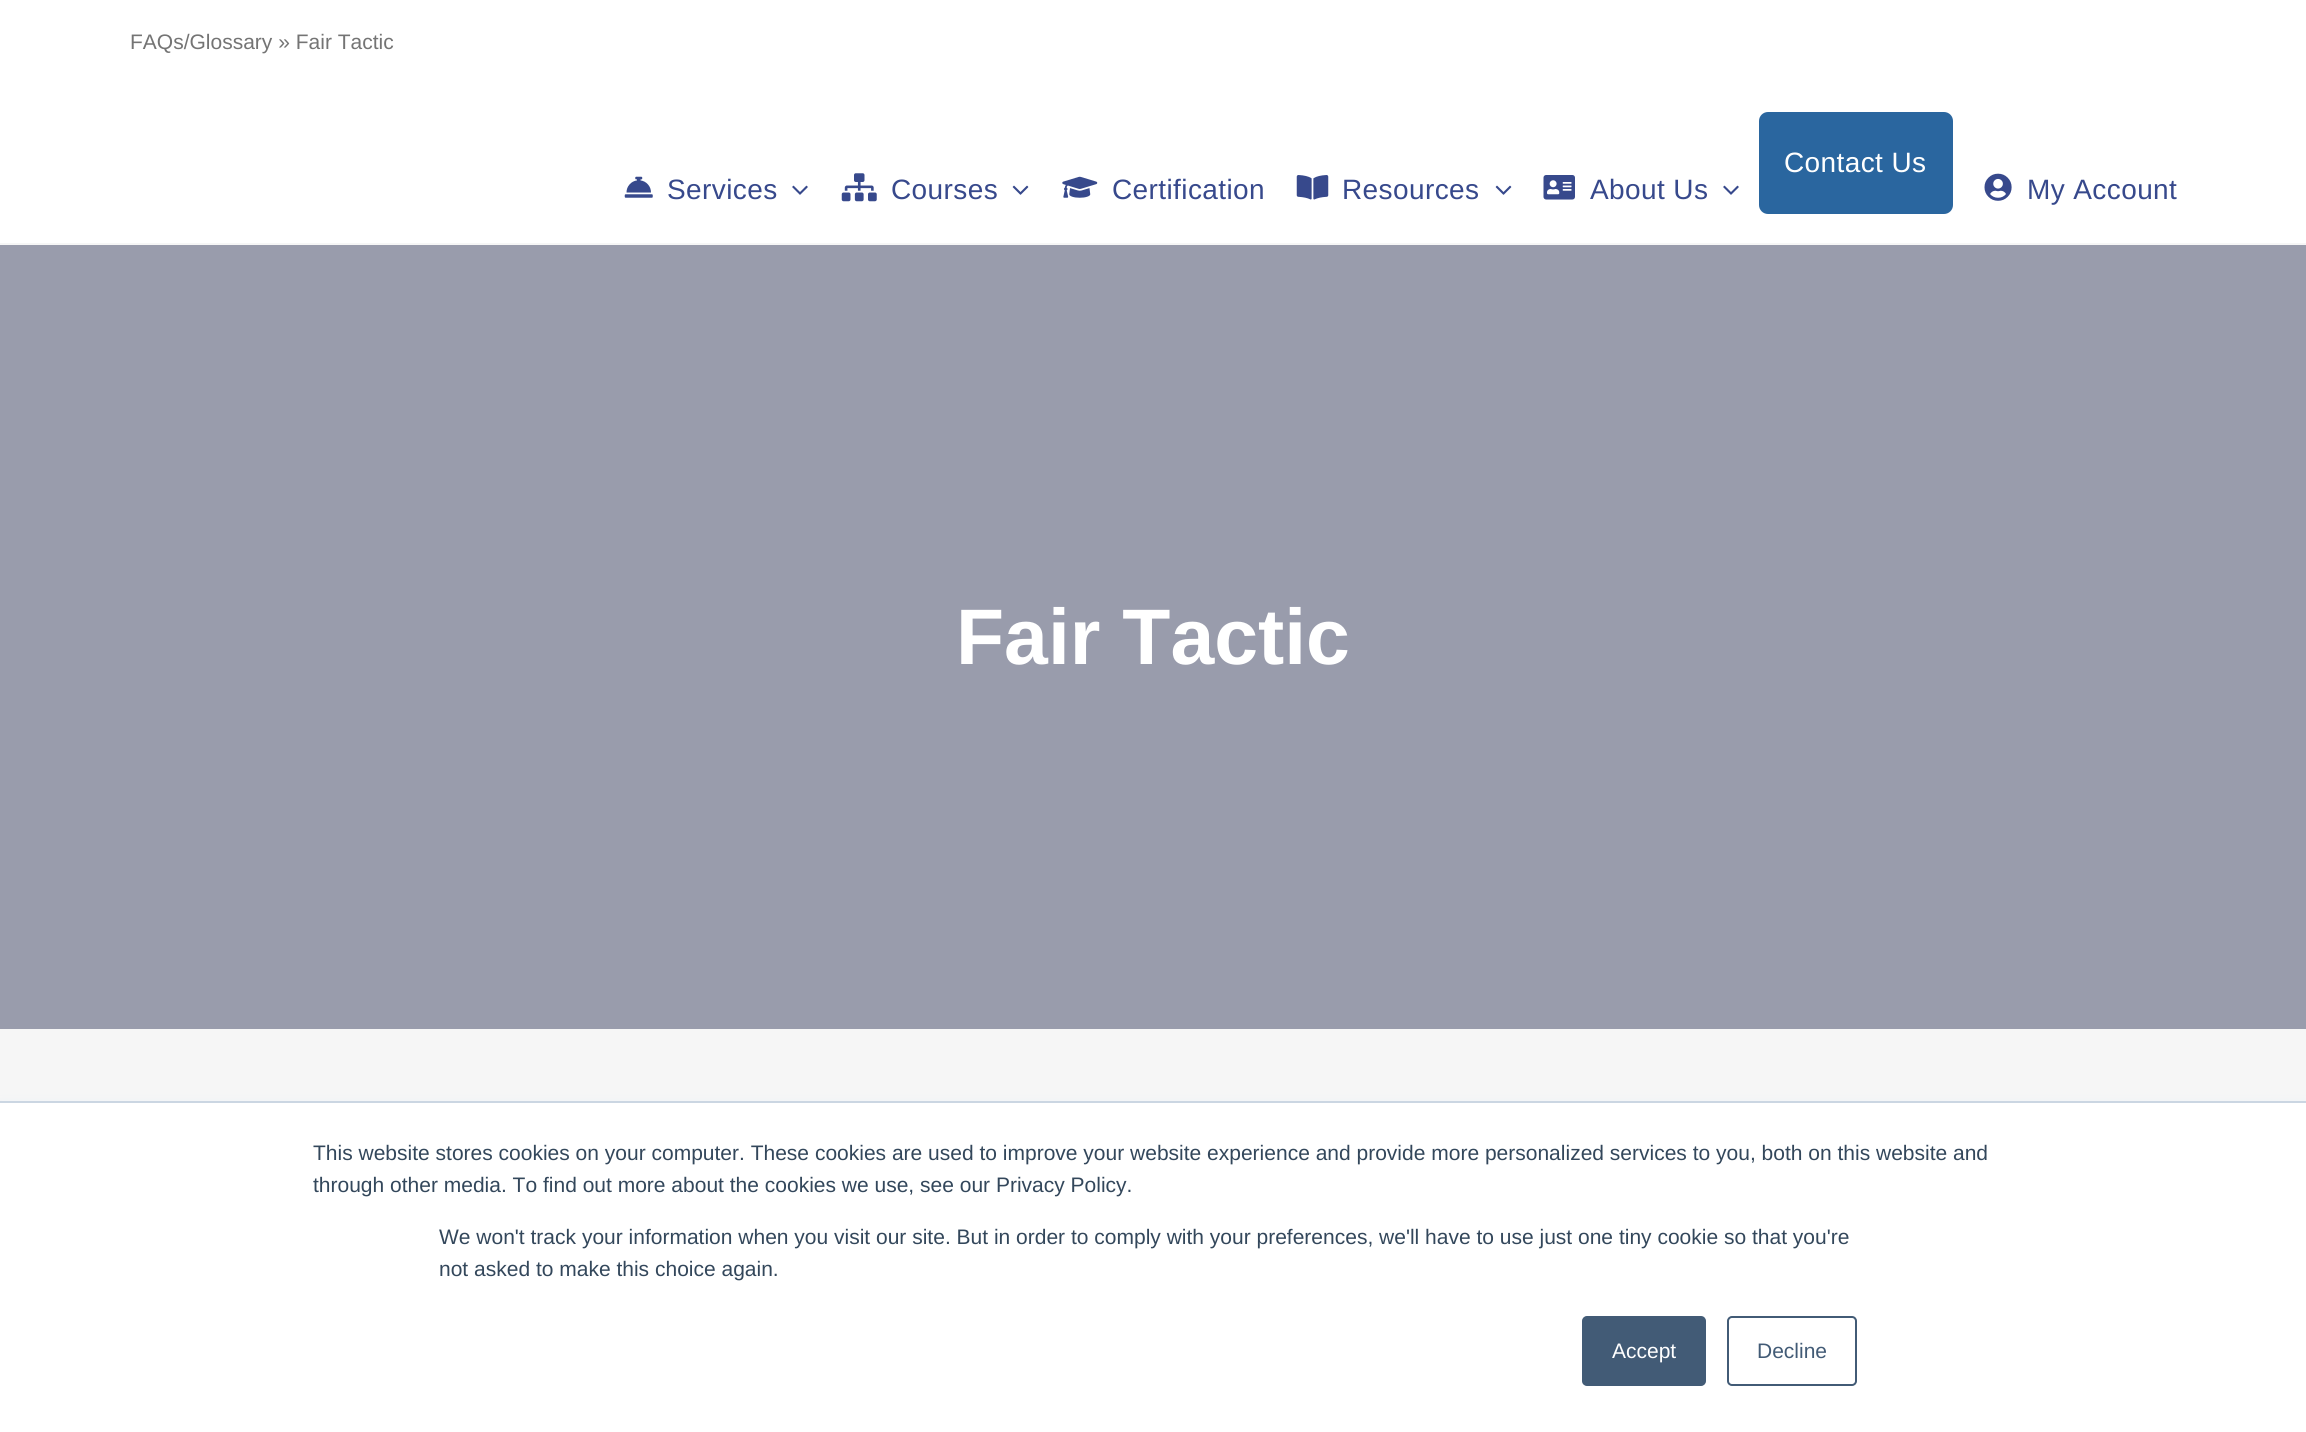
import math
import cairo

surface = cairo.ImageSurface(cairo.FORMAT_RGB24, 2306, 1432)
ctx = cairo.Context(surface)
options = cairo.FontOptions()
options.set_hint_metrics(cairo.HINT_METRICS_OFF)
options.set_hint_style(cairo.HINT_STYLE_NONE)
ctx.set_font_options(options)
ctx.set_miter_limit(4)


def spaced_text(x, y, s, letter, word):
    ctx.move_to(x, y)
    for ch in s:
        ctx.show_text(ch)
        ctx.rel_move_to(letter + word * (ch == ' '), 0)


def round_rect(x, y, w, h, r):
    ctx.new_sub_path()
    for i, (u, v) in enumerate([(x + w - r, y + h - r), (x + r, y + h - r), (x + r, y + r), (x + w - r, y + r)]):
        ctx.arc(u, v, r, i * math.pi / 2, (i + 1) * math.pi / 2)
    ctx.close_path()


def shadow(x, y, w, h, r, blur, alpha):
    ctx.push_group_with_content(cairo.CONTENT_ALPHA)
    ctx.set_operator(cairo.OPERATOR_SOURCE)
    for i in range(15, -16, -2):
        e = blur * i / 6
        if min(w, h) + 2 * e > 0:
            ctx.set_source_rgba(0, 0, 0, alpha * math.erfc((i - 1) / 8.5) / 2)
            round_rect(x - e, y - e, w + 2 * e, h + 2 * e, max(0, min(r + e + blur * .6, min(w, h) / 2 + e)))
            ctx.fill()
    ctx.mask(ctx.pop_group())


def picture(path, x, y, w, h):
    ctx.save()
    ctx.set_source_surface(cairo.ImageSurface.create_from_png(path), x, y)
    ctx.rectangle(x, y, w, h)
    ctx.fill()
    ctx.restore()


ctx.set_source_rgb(0.961, 0.961, 0.961)
ctx.paint()
ctx.set_source_rgb(1, 1, 1)
ctx.rectangle(0, 0, 2306, 243)
ctx.fill()
ctx.select_font_face("Liberation Sans")
ctx.set_font_size(21)
ctx.set_source_rgb(0.455, 0.455, 0.455)
ctx.move_to(130, 49)
ctx.show_text("FAQs/Glossary » Fair Tactic")
ctx.set_source_rgb(0.165, 0.4, 0.624)
round_rect(1759, 112, 194, 102, 9)
ctx.fill()
ctx.set_font_size(28)
ctx.set_source_rgb(1, 1, 1)
spaced_text(1784, 172, "Contact Us", 0.4, 0)
picture("img1.png", 624, 176, 29, 22)
ctx.set_source_rgb(0.216, 0.286, 0.549)
spaced_text(667, 199, "Services", 0.4, 0)
picture("img2.png", 792, 185, 16, 10)
picture("img3.png", 841, 173, 36, 29)
spaced_text(891, 199, "Courses", 0.4, 0)
picture("img4.png", 1012, 185, 17, 10)
picture("img5.png", 1062, 176, 36, 22)
spaced_text(1112, 199, "Certification", 0.4, 0)
picture("img6.png", 1296, 175, 33, 25)
spaced_text(1342, 199, "Resources", 0.4, 0)
picture("img4.png", 1495, 185, 17, 10)
picture("img7.png", 1543, 175, 32, 25)
spaced_text(1590, 199, "About Us", 0.4, 0)
picture("img2.png", 1723, 185, 16, 10)
picture("img8.png", 1984, 173, 28, 28)
spaced_text(2027, 199, "My Account", 0.4, 0)
ctx.set_source_rgb(0.6, 0.612, 0.675)
ctx.rectangle(0, 245, 2306, 784)
ctx.fill()
ctx.select_font_face("Liberation Sans", cairo.FONT_SLANT_NORMAL, cairo.FONT_WEIGHT_BOLD)
ctx.set_font_size(78.75)
ctx.set_source_rgb(1, 1, 1)
ctx.move_to(956, 664)
ctx.show_text("Fair Tactic")
ctx.set_source_rgb(0.918, 0.941, 0.965)
shadow(0, 1103, 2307, 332, 0, 4.5, 1)
ctx.set_source_rgb(1, 1, 1)
ctx.rectangle(0, 1103, 2306, 329)
ctx.fill()
ctx.set_source_rgb(0.796, 0.839, 0.886)
ctx.rectangle(0, 1101, 2306, 2)
ctx.fill()
ctx.select_font_face("Liberation Sans")
ctx.set_font_size(21)
ctx.set_source_rgb(0.2, 0.278, 0.357)
ctx.move_to(313, 1160)
ctx.show_text("This website stores cookies on your computer. These cookies are used to improve your website experience and provide more personalized services to you, both on this website and")
ctx.move_to(313, 1192)
ctx.show_text("through other media. To find out more about the cookies we use, see our Privacy Policy.")
ctx.move_to(439, 1244)
ctx.show_text("We won't track your information when you visit our site. But in order to comply with your preferences, we'll have to use just one tiny cookie so that you're")
ctx.move_to(439, 1276)
ctx.show_text("not asked to make this choice again.")
ctx.set_source_rgb(0.259, 0.357, 0.463)
round_rect(1583, 1317, 122, 68, 4)
ctx.fill_preserve()
ctx.stroke()
ctx.set_source_rgb(1, 1, 1)
ctx.move_to(1612, 1358)
ctx.show_text("Accept")
round_rect(1728, 1317, 128, 68, 4)
ctx.set_source_rgb(0.259, 0.357, 0.463)
ctx.stroke()
ctx.move_to(1757, 1358)
ctx.show_text("Decline")
surface.write_to_png("page.png")
